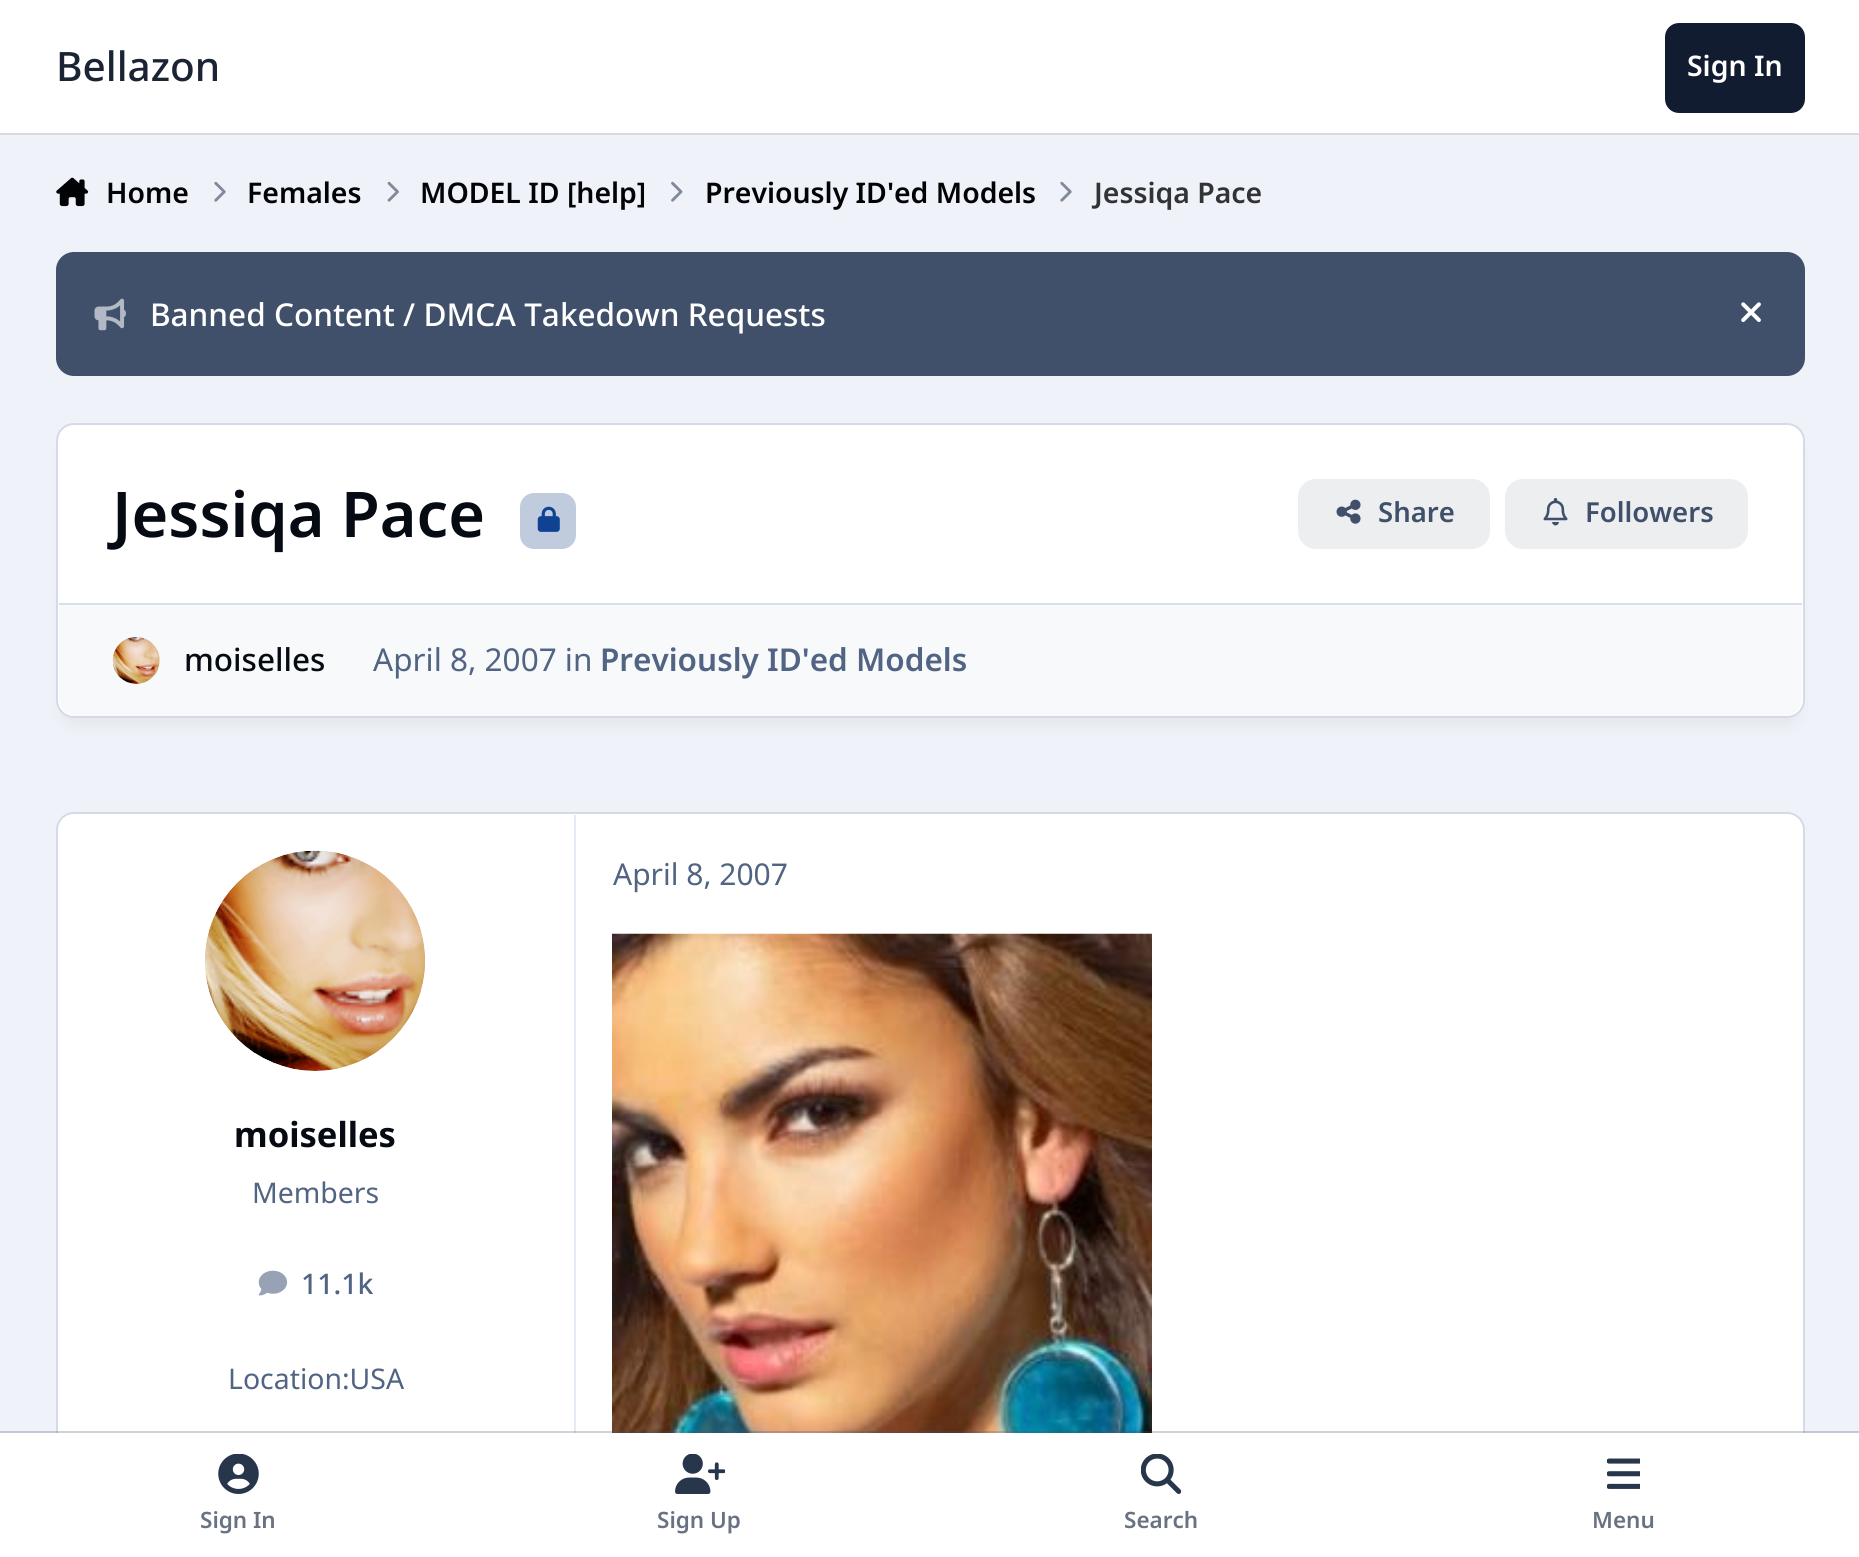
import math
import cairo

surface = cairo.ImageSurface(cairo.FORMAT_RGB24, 1859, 1557)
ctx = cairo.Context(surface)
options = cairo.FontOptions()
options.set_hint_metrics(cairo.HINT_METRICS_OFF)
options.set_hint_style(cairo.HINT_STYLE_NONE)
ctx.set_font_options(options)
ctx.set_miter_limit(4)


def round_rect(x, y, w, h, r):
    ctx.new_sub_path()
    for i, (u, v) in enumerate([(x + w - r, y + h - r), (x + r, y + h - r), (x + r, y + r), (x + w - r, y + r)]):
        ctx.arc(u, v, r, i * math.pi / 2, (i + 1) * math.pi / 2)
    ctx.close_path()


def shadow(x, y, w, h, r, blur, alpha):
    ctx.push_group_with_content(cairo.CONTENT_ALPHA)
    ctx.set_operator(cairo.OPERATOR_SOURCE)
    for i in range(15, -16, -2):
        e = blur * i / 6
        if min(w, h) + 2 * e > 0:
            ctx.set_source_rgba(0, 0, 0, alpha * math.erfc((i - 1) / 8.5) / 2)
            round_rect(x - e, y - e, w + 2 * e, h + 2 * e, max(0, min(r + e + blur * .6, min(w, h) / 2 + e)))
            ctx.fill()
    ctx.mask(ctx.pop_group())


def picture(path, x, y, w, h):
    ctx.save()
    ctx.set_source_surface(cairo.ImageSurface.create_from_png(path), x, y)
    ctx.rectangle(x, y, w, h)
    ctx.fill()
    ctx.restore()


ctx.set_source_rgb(0.937, 0.949, 0.969)
ctx.paint()
ctx.set_source_rgb(1, 1, 1)
ctx.rectangle(0, 0, 1859, 133)
ctx.fill()
ctx.set_source_rgb(0.855, 0.855, 0.863)
ctx.rectangle(0, 133, 1859, 2)
ctx.fill()
ctx.select_font_face("Noto Sans Medium")
ctx.set_font_size(40.5)
ctx.set_source_rgb(0.106, 0.141, 0.204)
ctx.move_to(56, 81)
ctx.show_text("Bellazon")
ctx.set_source_rgb(0.067, 0.11, 0.192)
round_rect(1665, 23, 140, 90, 14)
ctx.fill()
ctx.select_font_face("Noto Sans SemiBold")
ctx.set_font_size(28.4)
ctx.set_source_rgb(1, 1, 1)
ctx.move_to(1687, 76)
ctx.show_text("Sign In")
picture("img1.png", 56, 177, 33, 30)
ctx.set_source_rgb(0.008, 0.012, 0.02)
ctx.move_to(106, 203)
ctx.show_text("Home")
picture("img2.png", 214, 181, 12, 21)
ctx.move_to(247, 203)
ctx.show_text("Females")
picture("img3.png", 387, 181, 12, 21)
ctx.move_to(420, 203)
ctx.show_text("MODEL ID [help]")
picture("img4.png", 671, 181, 12, 21)
ctx.move_to(705, 203)
ctx.show_text("Previously ID'ed Models")
picture("img2.png", 1060, 181, 12, 21)
ctx.set_source_rgb(0.192, 0.2, 0.208)
ctx.move_to(1094, 203)
ctx.show_text("Jessiqa Pace")
ctx.set_source_rgb(0.251, 0.314, 0.42)
round_rect(56, 252, 1749, 124, 18)
ctx.fill()
picture("img5.png", 94, 298, 32, 33)
ctx.select_font_face("Noto Sans Medium")
ctx.set_font_size(31.5)
ctx.set_source_rgb(1, 1, 1)
ctx.move_to(150, 326)
ctx.show_text("Banned Content / DMCA Takedown Requests")
picture("img6.png", 1741, 302, 20, 20)
ctx.set_source_rgb(0.004, 0.012, 0.039)
shadow(63, 443, 1735, 282, 11, 8, 0.05)
ctx.set_source_rgb(1, 1, 1)
round_rect(57, 424, 1747, 293, 17)
ctx.fill_preserve()
ctx.set_source_rgb(0.835, 0.859, 0.902)
ctx.stroke()
ctx.select_font_face("Noto Sans SemiBold")
ctx.set_font_size(63)
ctx.set_source_rgb(0.024, 0.043, 0.078)
ctx.move_to(112, 537)
ctx.show_text("Jessiqa Pace")
ctx.set_source_rgb(0.753, 0.796, 0.871)
round_rect(520, 493, 56, 56, 14)
ctx.fill()
picture("img7.png", 537, 506, 23, 26)
ctx.set_source_rgb(0.925, 0.933, 0.941)
round_rect(1298, 479, 192, 70, 18)
ctx.fill()
picture("img8.png", 1336, 499, 25, 25)
ctx.set_font_size(27.5)
ctx.set_source_rgb(0.251, 0.314, 0.42)
ctx.move_to(1378, 522)
ctx.show_text("Share")
ctx.set_source_rgb(0.925, 0.933, 0.941)
round_rect(1505, 479, 243, 70, 18)
ctx.fill()
picture("img9.png", 1543, 498, 25, 28)
ctx.set_source_rgb(0.251, 0.314, 0.42)
ctx.move_to(1585, 522)
ctx.show_text("Followers")
ctx.set_source_rgb(0.969, 0.973, 0.984)
ctx.new_path()
ctx.move_to(59, 603)
ctx.line_to(1802, 603)
ctx.line_to(1802, 698)
ctx.curve_to(1802, 708, 1794, 716, 1784, 716)
ctx.line_to(77, 716)
ctx.curve_to(67, 716, 59, 708, 59, 698)
ctx.close_path()
ctx.fill()
ctx.set_source_rgb(0.843, 0.875, 0.918)
ctx.rectangle(59, 603, 1743, 2)
ctx.fill()
ctx.set_source_rgb(0.898, 0.918, 0.949)
ctx.arc(136.5, 660.5, 23.5, 0, 2 * math.pi)
ctx.fill()
picture("img10.png", 112, 637, 48, 47)
ctx.select_font_face("Noto Sans Medium")
ctx.set_font_size(31.5)
ctx.set_source_rgb(0.024, 0.043, 0.078)
ctx.move_to(184, 671)
ctx.show_text("moiselles")
ctx.select_font_face("Noto Sans")
ctx.set_source_rgb(0.318, 0.392, 0.514)
ctx.move_to(373, 671)
ctx.show_text("April 8, 2007 in")
ctx.select_font_face("Noto Sans SemiBold")
ctx.move_to(600, 671)
ctx.show_text("Previously ID'ed Models")
ctx.set_source_rgb(1, 1, 1)
round_rect(57, 813, 1747, 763, 17)
ctx.fill_preserve()
ctx.set_source_rgb(0.835, 0.859, 0.902)
ctx.stroke()
ctx.select_font_face("Noto Sans")
ctx.set_font_size(30)
ctx.set_source_rgb(0.318, 0.392, 0.514)
ctx.move_to(613, 885)
ctx.show_text("April 8, 2007")
picture("img11.png", 612, 933, 540, 500)
ctx.set_source_rgb(0.898, 0.918, 0.949)
ctx.rectangle(574, 815, 2, 618)
ctx.fill()
ctx.arc(315, 961, 110, 0, 2 * math.pi)
ctx.fill()
picture("img12.png", 205, 850, 220, 221)
ctx.select_font_face("Noto Sans", cairo.FONT_SLANT_NORMAL, cairo.FONT_WEIGHT_BOLD)
ctx.set_font_size(34.5)
ctx.set_source_rgb(0.024, 0.043, 0.078)
ctx.move_to(234, 1147)
ctx.show_text("moiselles")
ctx.select_font_face("Noto Sans")
ctx.set_font_size(28.4)
ctx.set_source_rgb(0.318, 0.392, 0.514)
ctx.move_to(252, 1203)
ctx.show_text("Members")
picture("img13.png", 258, 1270, 30, 26)
ctx.select_font_face("Noto Sans Medium")
ctx.move_to(301, 1294)
ctx.show_text("11.1k")
ctx.select_font_face("Noto Sans")
ctx.move_to(228, 1389)
ctx.show_text("Location:USA")
ctx.set_source_rgba(0.251, 0.314, 0.42, 0.25)
ctx.new_path()
ctx.move_to(0, 1431)
ctx.line_to(0, 1433)
ctx.line_to(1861, 1433)
ctx.line_to(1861, 1555)
ctx.line_to(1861, 1431)
ctx.close_path()
ctx.fill()
ctx.set_source_rgb(1, 1, 1)
ctx.rectangle(0, 1433, 1859, 124)
ctx.fill()
picture("img14.png", 218, 1454, 41, 40)
ctx.select_font_face("Noto Sans SemiBold")
ctx.set_font_size(22.5)
ctx.set_source_rgb(0.412, 0.447, 0.51)
ctx.move_to(200, 1528)
ctx.show_text("Sign In")
picture("img15.png", 675, 1454, 50, 40)
ctx.move_to(657, 1528)
ctx.show_text("Sign Up")
picture("img16.png", 1141, 1454, 40, 40)
ctx.move_to(1124, 1528)
ctx.show_text("Search")
picture("img17.png", 1607, 1458, 33, 31)
ctx.move_to(1592, 1528)
ctx.show_text("Menu")
surface.write_to_png("page.png")
